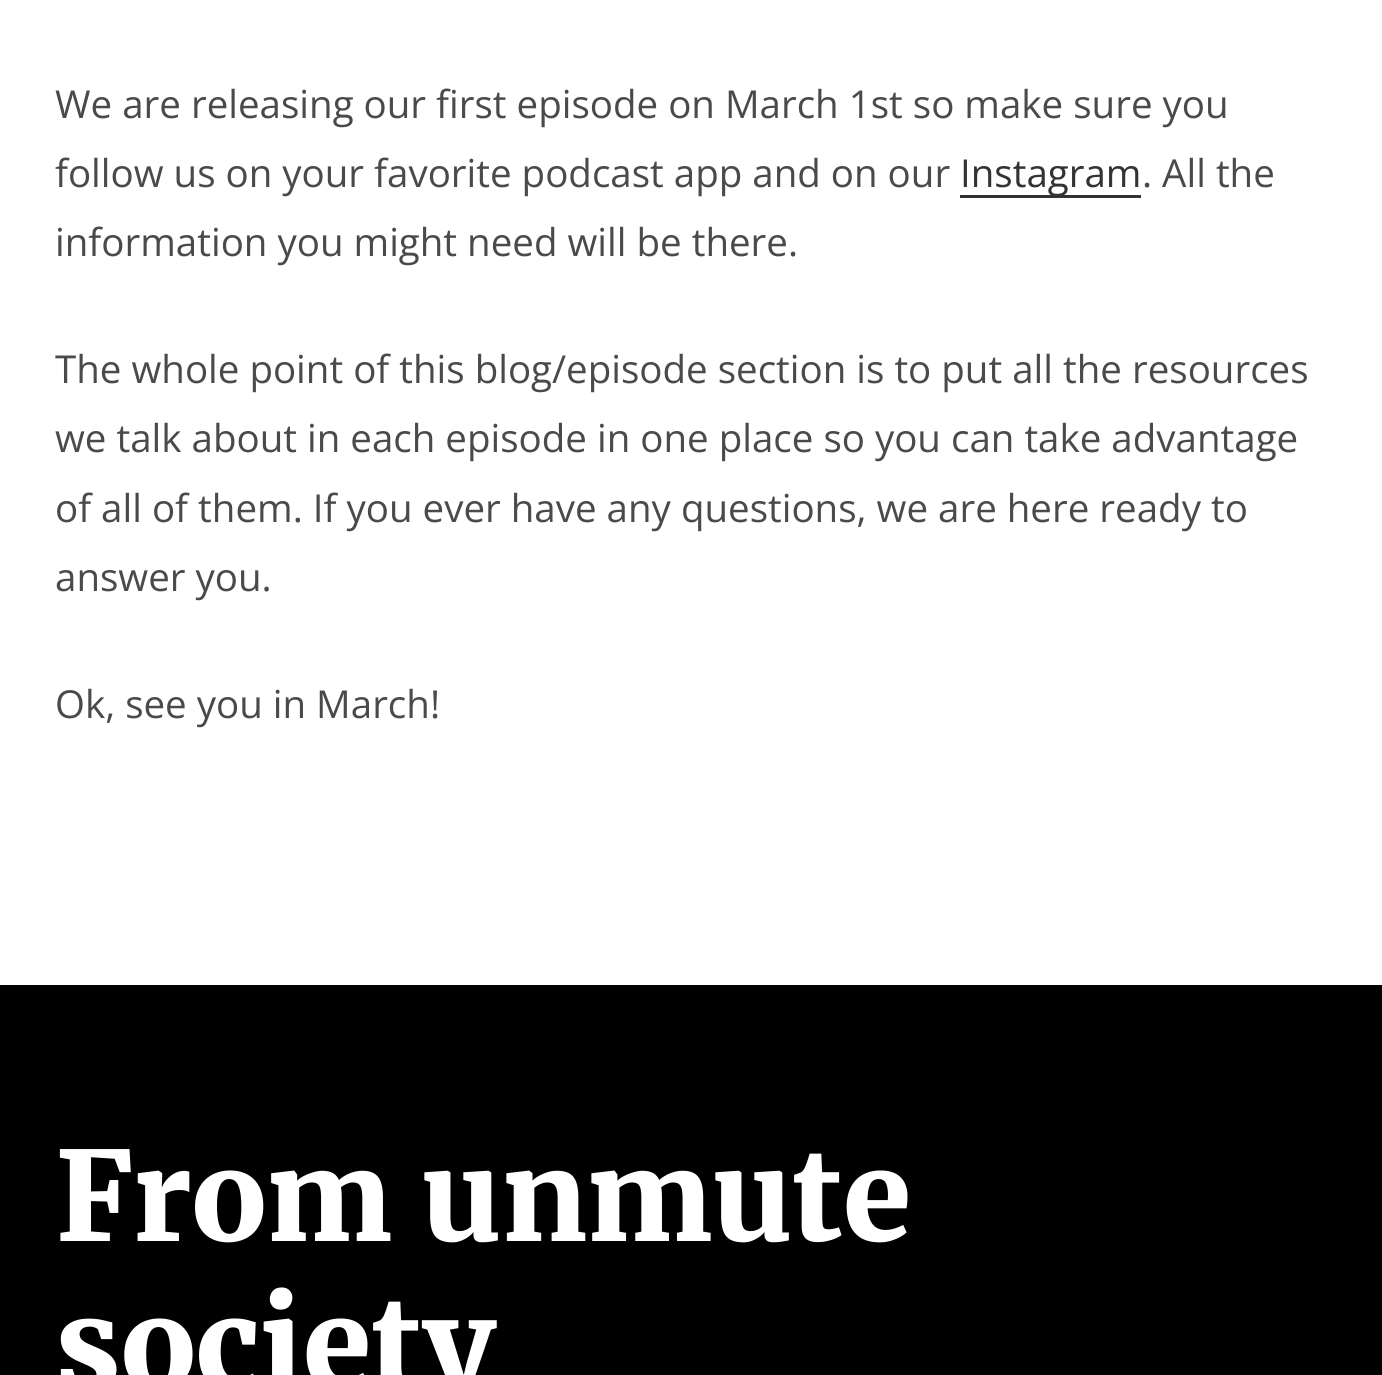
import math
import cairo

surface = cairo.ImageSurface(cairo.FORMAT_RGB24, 1382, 1375)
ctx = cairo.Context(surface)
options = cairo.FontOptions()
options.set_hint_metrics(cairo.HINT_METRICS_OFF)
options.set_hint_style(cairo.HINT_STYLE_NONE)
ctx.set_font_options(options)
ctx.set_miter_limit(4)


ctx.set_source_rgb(1, 1, 1)
ctx.paint()
ctx.select_font_face("Open Sans")
ctx.set_font_size(38.5)
ctx.set_source_rgb(0.29, 0.29, 0.29)
ctx.move_to(55, 118)
ctx.show_text("We are releasing our first episode on March 1st so make sure you")
ctx.move_to(55, 187)
ctx.show_text("follow us on your favorite podcast app and on our")
ctx.set_source_rgb(0.2, 0.2, 0.2)
ctx.rectangle(960, 195, 181, 3)
ctx.fill()
ctx.move_to(960, 187)
ctx.show_text("Instagram")
ctx.set_source_rgb(0.29, 0.29, 0.29)
ctx.move_to(1142, 187)
ctx.show_text(". All the")
ctx.move_to(55, 256)
ctx.show_text("information you might need will be there.")
ctx.move_to(55, 383)
ctx.show_text("The whole point of this blog/episode section is to put all the resources")
ctx.move_to(55, 452)
ctx.show_text("we talk about in each episode in one place so you can take advantage")
ctx.move_to(55, 522)
ctx.show_text("of all of them. If you ever have any questions, we are here ready to")
ctx.move_to(55, 591)
ctx.show_text("answer you.")
ctx.move_to(55, 718)
ctx.show_text("Ok, see you in March!")
ctx.set_source_rgb(0, 0, 0)
ctx.rectangle(0, 985, 1382, 390)
ctx.fill()
ctx.select_font_face("Merriweather Black")
ctx.set_font_size(123.75)
ctx.set_source_rgb(1, 1, 1)
ctx.move_to(55, 1241)
ctx.show_text("From unmute")
ctx.move_to(55, 1389)
ctx.show_text("society")
surface.write_to_png("page.png")
